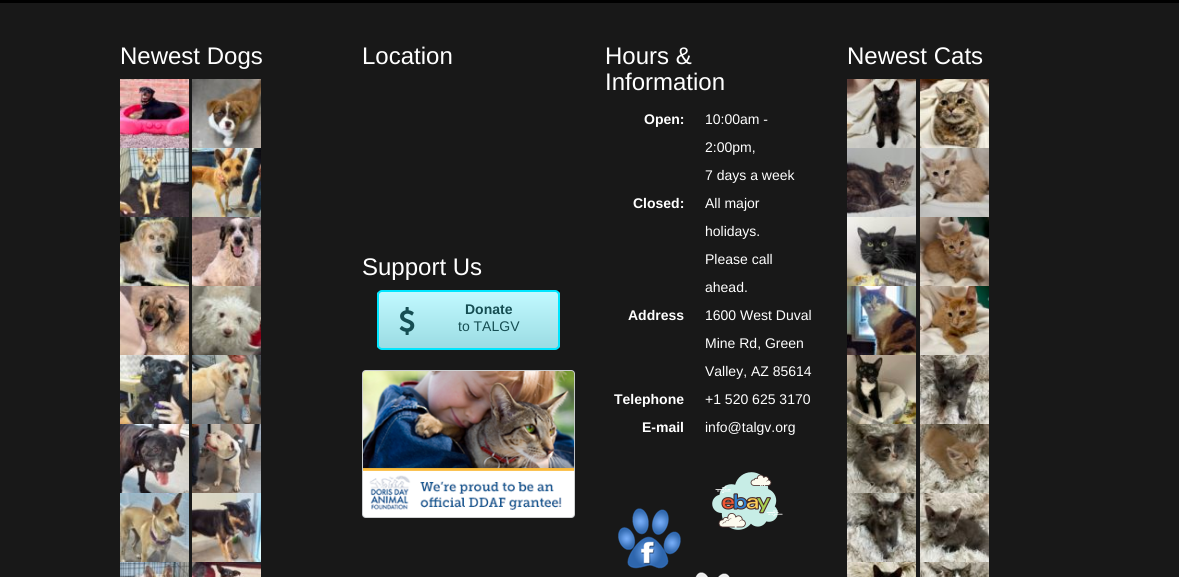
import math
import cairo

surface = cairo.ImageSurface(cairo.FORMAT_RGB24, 1179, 577)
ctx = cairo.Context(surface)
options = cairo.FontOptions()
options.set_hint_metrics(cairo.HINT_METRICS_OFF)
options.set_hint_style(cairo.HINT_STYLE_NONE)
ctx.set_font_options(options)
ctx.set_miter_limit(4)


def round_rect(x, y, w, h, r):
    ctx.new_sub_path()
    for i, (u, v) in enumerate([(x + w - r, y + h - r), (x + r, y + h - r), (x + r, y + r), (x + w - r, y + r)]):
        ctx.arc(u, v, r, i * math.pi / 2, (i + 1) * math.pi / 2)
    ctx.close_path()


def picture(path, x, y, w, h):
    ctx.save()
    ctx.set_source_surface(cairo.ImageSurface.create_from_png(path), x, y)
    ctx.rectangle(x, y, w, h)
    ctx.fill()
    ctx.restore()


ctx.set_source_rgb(0.094, 0.094, 0.094)
ctx.paint()
ctx.set_source_rgb(0, 0, 0)
ctx.rectangle(0, 0, 1179, 3)
ctx.fill()
ctx.select_font_face("Liberation Sans")
ctx.set_font_size(24)
ctx.set_source_rgb(1, 1, 1)
ctx.move_to(120, 64)
ctx.show_text("Newest Dogs")
picture("img1.png", 120, 79, 69, 69)
picture("img2.png", 192, 79, 69, 69)
picture("img3.png", 120, 148, 69, 69)
picture("img4.png", 192, 148, 69, 69)
picture("img5.png", 120, 217, 69, 69)
picture("img6.png", 192, 217, 69, 69)
picture("img7.png", 120, 286, 69, 69)
picture("img8.png", 192, 286, 69, 69)
picture("img9.png", 120, 355, 69, 69)
picture("img10.png", 192, 355, 69, 69)
picture("img11.png", 120, 424, 69, 69)
picture("img12.png", 192, 424, 69, 69)
picture("img13.png", 120, 493, 69, 69)
picture("img14.png", 192, 493, 69, 69)
picture("img15.png", 120, 562, 69, 15)
picture("img16.png", 192, 562, 69, 15)
ctx.move_to(362, 64)
ctx.show_text("Location")
ctx.move_to(362, 275)
ctx.show_text("Support Us")
ctx.save()
round_rect(377, 290, 183, 60, 5)
ctx.clip()
gradient = cairo.LinearGradient(469, 292, 469, 348)
gradient.add_color_stop_rgba(0, 0.757, 0.976, 1, 1)
gradient.add_color_stop_rgba(1, 0.608, 0.863, 0.89, 1)
ctx.set_source(gradient)
ctx.rectangle(377, 292, 183, 56)
ctx.fill()
ctx.restore()
round_rect(378, 291, 181, 58, 4)
ctx.set_source_rgb(0, 0.902, 1)
ctx.stroke()
picture("img17.png", 399, 307, 16, 28)
ctx.select_font_face("Liberation Sans", cairo.FONT_SLANT_NORMAL, cairo.FONT_WEIGHT_BOLD)
ctx.set_font_size(14)
ctx.set_source_rgb(0.086, 0.306, 0.325)
ctx.move_to(465, 314)
ctx.show_text("Donate")
ctx.select_font_face("Liberation Sans")
ctx.move_to(458, 331)
ctx.show_text("to TALGV")
picture("img18.png", 362, 370, 213, 148)
ctx.set_font_size(24)
ctx.set_source_rgb(1, 1, 1)
ctx.move_to(605, 64)
ctx.show_text("Hours &")
ctx.move_to(605, 90)
ctx.show_text("Information")
ctx.select_font_face("Liberation Sans", cairo.FONT_SLANT_NORMAL, cairo.FONT_WEIGHT_BOLD)
ctx.set_font_size(14)
ctx.move_to(644, 124)
ctx.show_text("Open:")
ctx.select_font_face("Liberation Sans")
ctx.move_to(705, 124)
ctx.show_text("10:00am -")
ctx.move_to(705, 152)
ctx.show_text("2:00pm,")
ctx.move_to(705, 180)
ctx.show_text("7 days a week")
ctx.select_font_face("Liberation Sans", cairo.FONT_SLANT_NORMAL, cairo.FONT_WEIGHT_BOLD)
ctx.move_to(633, 208)
ctx.show_text("Closed:")
ctx.select_font_face("Liberation Sans")
ctx.move_to(705, 208)
ctx.show_text("All major")
ctx.move_to(705, 236)
ctx.show_text("holidays.")
ctx.move_to(705, 264)
ctx.show_text("Please call")
ctx.move_to(705, 292)
ctx.show_text("ahead.")
ctx.select_font_face("Liberation Sans", cairo.FONT_SLANT_NORMAL, cairo.FONT_WEIGHT_BOLD)
ctx.move_to(628, 320)
ctx.show_text("Address")
ctx.select_font_face("Liberation Sans")
ctx.move_to(705, 320)
ctx.show_text("1600 West Duval")
ctx.move_to(705, 348)
ctx.show_text("Mine Rd, Green")
ctx.move_to(705, 376)
ctx.show_text("Valley, AZ 85614")
ctx.select_font_face("Liberation Sans", cairo.FONT_SLANT_NORMAL, cairo.FONT_WEIGHT_BOLD)
ctx.move_to(614, 404)
ctx.show_text("Telephone")
ctx.select_font_face("Liberation Sans")
ctx.move_to(705, 404)
ctx.show_text("+1 520 625 3170")
ctx.select_font_face("Liberation Sans", cairo.FONT_SLANT_NORMAL, cairo.FONT_WEIGHT_BOLD)
ctx.move_to(642, 432)
ctx.show_text("E-mail")
ctx.select_font_face("Liberation Sans")
ctx.move_to(705, 432)
ctx.show_text("info@talgv.org")
picture("img19.png", 712, 472, 71, 58)
picture("img20.png", 618, 508, 63, 61)
picture("img21.png", 695, 572, 35, 5)
ctx.set_font_size(24)
ctx.move_to(847, 64)
ctx.show_text("Newest Cats")
picture("img22.png", 847, 79, 69, 69)
picture("img23.png", 920, 79, 69, 69)
picture("img24.png", 847, 148, 69, 69)
picture("img25.png", 920, 148, 69, 69)
picture("img26.png", 847, 217, 69, 69)
picture("img27.png", 920, 217, 69, 69)
picture("img28.png", 847, 286, 69, 69)
picture("img29.png", 920, 286, 69, 69)
picture("img30.png", 847, 355, 69, 69)
picture("img31.png", 920, 355, 69, 69)
picture("img32.png", 847, 424, 69, 69)
picture("img33.png", 920, 424, 69, 69)
picture("img34.png", 847, 493, 69, 69)
picture("img35.png", 920, 493, 69, 69)
picture("img36.png", 847, 562, 69, 15)
picture("img37.png", 920, 562, 69, 15)
surface.write_to_png("page.png")
